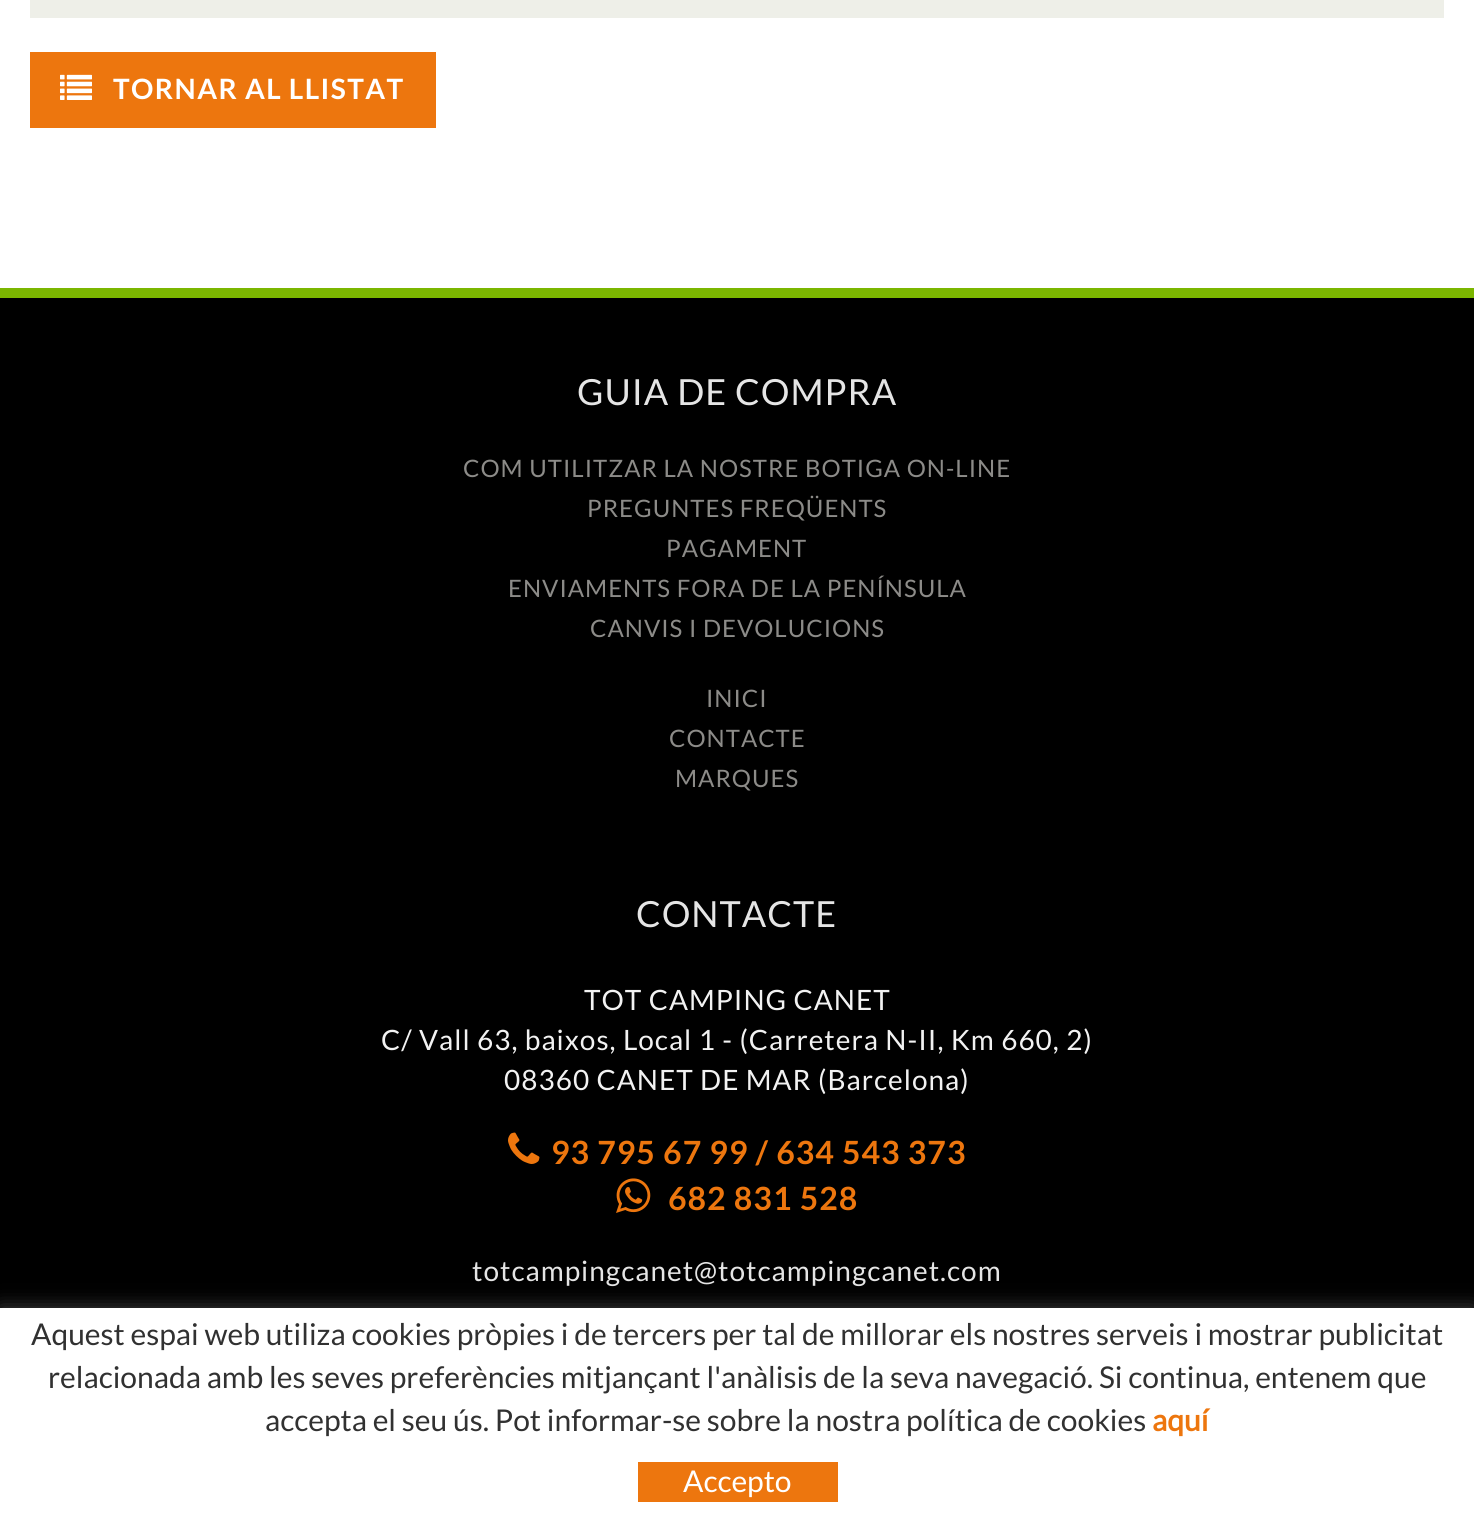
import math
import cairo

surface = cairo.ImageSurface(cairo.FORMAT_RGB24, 1474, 1528)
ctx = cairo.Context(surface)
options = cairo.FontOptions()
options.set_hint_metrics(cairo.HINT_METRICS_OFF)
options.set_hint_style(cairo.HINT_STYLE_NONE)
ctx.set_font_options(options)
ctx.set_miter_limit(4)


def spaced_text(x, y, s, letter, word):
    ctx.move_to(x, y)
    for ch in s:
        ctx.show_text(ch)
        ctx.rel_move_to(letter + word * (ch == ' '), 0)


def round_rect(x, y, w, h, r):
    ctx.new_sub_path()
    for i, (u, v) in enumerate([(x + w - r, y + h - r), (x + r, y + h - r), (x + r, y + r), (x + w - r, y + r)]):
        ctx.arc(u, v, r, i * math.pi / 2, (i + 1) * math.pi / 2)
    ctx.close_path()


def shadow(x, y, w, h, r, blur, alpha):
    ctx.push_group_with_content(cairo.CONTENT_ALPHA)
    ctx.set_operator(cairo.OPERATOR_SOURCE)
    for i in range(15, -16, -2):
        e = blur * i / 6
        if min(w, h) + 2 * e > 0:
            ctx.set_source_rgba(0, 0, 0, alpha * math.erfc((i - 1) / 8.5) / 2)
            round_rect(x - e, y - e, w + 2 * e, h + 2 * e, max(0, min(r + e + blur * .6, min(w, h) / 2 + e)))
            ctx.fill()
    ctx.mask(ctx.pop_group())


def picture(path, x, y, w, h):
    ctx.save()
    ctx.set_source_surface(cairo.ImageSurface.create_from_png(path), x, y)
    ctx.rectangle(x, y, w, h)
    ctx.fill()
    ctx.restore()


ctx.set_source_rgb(1, 1, 1)
ctx.paint()
ctx.set_source_rgb(0.933, 0.937, 0.91)
ctx.rectangle(30, 0, 1414, 18)
ctx.fill()
ctx.set_source_rgb(0.929, 0.463, 0.055)
ctx.rectangle(30, 52, 406, 76)
ctx.fill()
picture("img1.png", 60, 74, 32, 26)
ctx.select_font_face("Lato", cairo.FONT_SLANT_NORMAL, cairo.FONT_WEIGHT_BOLD)
ctx.set_font_size(28)
ctx.set_source_rgb(1, 1, 1)
spaced_text(113, 99, "TORNAR AL LLISTAT", 1.4, 0)
ctx.set_source_rgb(0, 0, 0)
ctx.rectangle(0, 298, 1474, 1010)
ctx.fill()
ctx.set_source_rgb(0.482, 0.714, 0)
ctx.rectangle(0, 288, 1474, 10)
ctx.fill()
ctx.select_font_face("Lato")
ctx.set_font_size(36)
ctx.set_source_rgb(0.898, 0.898, 0.898)
spaced_text(577, 405, "GUIA DE COMPRA", 1, 0)
ctx.set_font_size(24)
ctx.set_source_rgb(0.549, 0.545, 0.533)
spaced_text(463, 477, "COM UTILITZAR LA NOSTRE BOTIGA ON-LINE", 1, 0)
spaced_text(587, 517, "PREGUNTES FREQÜENTS", 1, 0)
spaced_text(666, 557, "PAGAMENT", 1, 0)
spaced_text(508, 597, "ENVIAMENTS FORA DE LA PENÍNSULA", 1, 0)
spaced_text(590, 637, "CANVIS I DEVOLUCIONS", 1, 0)
spaced_text(706, 707, "INICI", 1, 0)
spaced_text(669, 747, "CONTACTE", 1, 0)
spaced_text(675, 787, "MARQUES", 1, 0)
ctx.set_font_size(36)
ctx.set_source_rgb(0.898, 0.898, 0.898)
spaced_text(636, 927, "CONTACTE", 1, 0)
ctx.set_font_size(28)
ctx.set_source_rgb(0.949, 0.949, 0.949)
spaced_text(584, 1010, "TOT CAMPING CANET", 1, 0)
spaced_text(381, 1050, "C/ Vall 63, baixos, Local 1 - (Carretera N-II, Km 660, 2)", 1, 0)
spaced_text(504, 1090, "08360 CANET DE MAR (Barcelona)", 1, 0)
picture("img2.png", 508, 1132, 32, 32)
ctx.select_font_face("Lato", cairo.FONT_SLANT_NORMAL, cairo.FONT_WEIGHT_BOLD)
ctx.set_font_size(32)
ctx.set_source_rgb(0.929, 0.463, 0.055)
spaced_text(551, 1164, "93 795 67 99 / 634 543 373", 1, 0)
picture("img3.png", 616, 1178, 35, 35)
spaced_text(668, 1210, "682 831 528", 1, 0)
ctx.select_font_face("Lato")
ctx.set_font_size(28)
ctx.set_source_rgb(0.898, 0.898, 0.898)
spaced_text(472, 1281, "totcampingcanet@totcampingcanet.com", 1, 0)
ctx.set_source_rgb(0.267, 0.267, 0.267)
shadow(0, 1308, 1474, 220, 0, 10, 1)
ctx.set_source_rgb(1, 1, 1)
ctx.rectangle(0, 1308, 1474, 220)
ctx.fill()
ctx.set_font_size(30)
ctx.set_source_rgb(0.192, 0.192, 0.192)
ctx.move_to(31, 1345)
ctx.show_text("Aquest espai web utiliza cookies pròpies i de tercers per tal de millorar els nostres serveis i mostrar publicitat")
ctx.move_to(48, 1388)
ctx.show_text("relacionada amb les seves preferències mitjançant l'anàlisis de la seva navegació. Si continua, entenem que")
ctx.move_to(265, 1431)
ctx.show_text("accepta el seu ús. Pot informar-se sobre la nostra política de cookies")
ctx.select_font_face("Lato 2", cairo.FONT_SLANT_NORMAL, cairo.FONT_WEIGHT_BOLD)
ctx.set_source_rgb(0.929, 0.463, 0.055)
ctx.move_to(1152, 1431)
ctx.show_text("aquí")
ctx.rectangle(638, 1462, 200, 40)
ctx.fill()
ctx.select_font_face("Lato")
ctx.set_source_rgb(1, 1, 1)
ctx.move_to(683, 1492)
ctx.show_text("Accepto")
surface.write_to_png("page.png")
